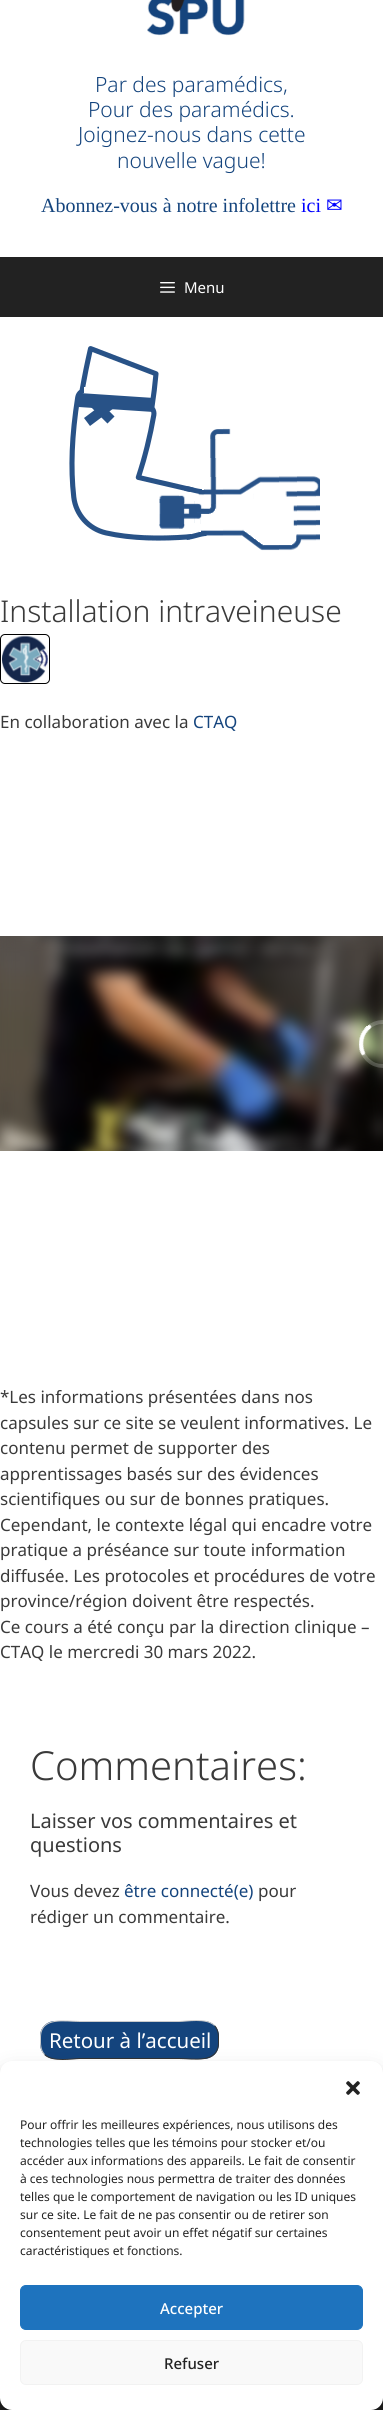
import math
import cairo

surface = cairo.ImageSurface(cairo.FORMAT_RGB24, 383, 2410)
ctx = cairo.Context(surface)
options = cairo.FontOptions()
options.set_hint_metrics(cairo.HINT_METRICS_OFF)
options.set_hint_style(cairo.HINT_STYLE_NONE)
ctx.set_font_options(options)
ctx.set_miter_limit(4)


def round_rect(x, y, w, h, r):
    ctx.new_sub_path()
    for i, (u, v) in enumerate([(x + w - r, y + h - r), (x + r, y + h - r), (x + r, y + r), (x + w - r, y + r)]):
        ctx.arc(u, v, r, i * math.pi / 2, (i + 1) * math.pi / 2)
    ctx.close_path()


def shadow(x, y, w, h, r, blur, alpha):
    ctx.push_group_with_content(cairo.CONTENT_ALPHA)
    ctx.set_operator(cairo.OPERATOR_SOURCE)
    for i in range(15, -16, -2):
        e = blur * i / 6
        if min(w, h) + 2 * e > 0:
            ctx.set_source_rgba(0, 0, 0, alpha * math.erfc((i - 1) / 8.5) / 2)
            round_rect(x - e, y - e, w + 2 * e, h + 2 * e, max(0, min(r + e + blur * .6, min(w, h) / 2 + e)))
            ctx.fill()
    ctx.mask(ctx.pop_group())


def picture(path, x, y, w, h):
    ctx.save()
    ctx.set_source_surface(cairo.ImageSurface.create_from_png(path), x, y)
    ctx.rectangle(x, y, w, h)
    ctx.fill()
    ctx.restore()


ctx.set_source_rgb(1, 1, 1)
ctx.paint()
picture("img1.png", 147, 0, 98, 36)
ctx.select_font_face("Noto Sans Light")
ctx.set_font_size(21)
ctx.set_source_rgb(0.082, 0.267, 0.49)
ctx.move_to(95, 92)
ctx.show_text("Par des paramédics,")
ctx.move_to(88, 117)
ctx.show_text("Pour des paramédics.")
ctx.move_to(78, 142)
ctx.show_text("Joignez-nous dans cette")
ctx.move_to(117, 168)
ctx.show_text("nouvelle vague!")
ctx.select_font_face("Liberation Serif")
ctx.set_font_size(20)
ctx.move_to(41, 212)
ctx.show_text("Abonnez-vous à notre infolettre")
ctx.set_source_rgb(0, 0, 1)
ctx.move_to(301, 212)
ctx.show_text("ici")
ctx.select_font_face("DejaVu Sans")
ctx.move_to(326, 212)
ctx.show_text("✉")
ctx.set_source_rgb(0.133, 0.133, 0.133)
ctx.rectangle(0, 257, 383, 60)
ctx.fill()
picture("img2.png", 160, 282, 15, 11)
ctx.select_font_face("Noto Sans")
ctx.set_font_size(15)
ctx.set_source_rgb(1, 1, 1)
ctx.move_to(184, 293)
ctx.show_text("Menu")
picture("img3.png", 69, 346, 251, 205)
ctx.select_font_face("Noto Sans Light")
ctx.set_font_size(30)
ctx.set_source_rgb(0.227, 0.227, 0.227)
ctx.move_to(0, 622)
ctx.show_text("Installation intraveineuse")
picture("img4.png", 0, 634, 50, 50)
ctx.select_font_face("Noto Sans")
ctx.set_font_size(17)
ctx.move_to(0, 728)
ctx.show_text("En collaboration avec la")
ctx.set_source_rgb(0.082, 0.267, 0.49)
ctx.move_to(193, 728)
ctx.show_text("CTAQ")
picture("img5.png", 0, 936, 383, 215)
ctx.set_source_rgb(0.227, 0.227, 0.227)
ctx.move_to(0, 1403)
ctx.show_text("*Les informations présentées dans nos")
ctx.move_to(0, 1429)
ctx.show_text("capsules sur ce site se veulent informatives. Le")
ctx.move_to(0, 1454)
ctx.show_text("contenu permet de supporter des")
ctx.move_to(0, 1480)
ctx.show_text("apprentissages basés sur des évidences")
ctx.move_to(0, 1505)
ctx.show_text("scientifiques ou sur de bonnes pratiques.")
ctx.move_to(0, 1531)
ctx.show_text("Cependant, le contexte légal qui encadre votre")
ctx.move_to(0, 1556)
ctx.show_text("pratique a préséance sur toute information")
ctx.move_to(0, 1582)
ctx.show_text("diffusée. Les protocoles et procédures de votre")
ctx.move_to(0, 1607)
ctx.show_text("province/région doivent être respectés.")
ctx.move_to(0, 1633)
ctx.show_text("Ce cours a été conçu par la direction clinique –")
ctx.move_to(0, 1658)
ctx.show_text("CTAQ le mercredi 30 mars 2022.")
ctx.select_font_face("Noto Sans Light")
ctx.set_font_size(40)
ctx.move_to(30, 1780)
ctx.show_text("Commentaires:")
ctx.select_font_face("Noto Sans")
ctx.set_font_size(20)
ctx.move_to(30, 1828)
ctx.show_text("Laisser vos commentaires et")
ctx.move_to(30, 1852)
ctx.show_text("questions")
ctx.set_font_size(17)
ctx.move_to(30, 1897)
ctx.show_text("Vous devez")
ctx.set_source_rgb(0.082, 0.267, 0.49)
ctx.move_to(124, 1897)
ctx.show_text("être connecté(e)")
ctx.set_source_rgb(0.227, 0.227, 0.227)
ctx.move_to(258, 1897)
ctx.show_text("pour")
ctx.move_to(30, 1923)
ctx.show_text("rédiger un commentaire.")
ctx.set_source_rgb(0.082, 0.267, 0.49)
round_rect(40, 2021, 179, 38, 15)
ctx.fill()
ctx.new_path()
ctx.move_to(214.5, 2025.5)
ctx.curve_to(219, 2030.5, 218.5, 2036.5, 218.5, 2042.5)
ctx.curve_to(218.5, 2064, 193.5, 2058.5, 179, 2058.5)
ctx.line_to(80, 2058.5)
ctx.curve_to(73, 2058.5, 52.5, 2062.5, 44.5, 2054.5)
ctx.set_source_rgb(0.2, 0.2, 0.2)
ctx.set_line_width(1)
ctx.stroke()
ctx.new_path()
ctx.move_to(44.5, 2054.5)
ctx.curve_to(40, 2049.5, 40.5, 2043.5, 40.5, 2037.5)
ctx.curve_to(40.5, 2016, 65.5, 2021.5, 80, 2021.5)
ctx.line_to(179, 2021.5)
ctx.curve_to(186, 2021.5, 206.5, 2017.5, 214.5, 2025.5)
ctx.set_source_rgb(0.8, 0.8, 0.8)
ctx.stroke()
ctx.set_font_size(20.5)
ctx.set_source_rgb(1, 1, 1)
ctx.move_to(49, 2048)
ctx.show_text("Retour à l’accueil")
ctx.set_source_rgb(0.133, 0.133, 0.133)
ctx.rectangle(0, 2398, 383, 12)
ctx.fill()
ctx.set_source_rgb(0, 0, 0)
shadow(0, 2067, 383, 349, 12, 3, 0.23)
shadow(0, 2071, 383, 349, 12, 10, 0.19)
ctx.set_source_rgb(1, 1, 1)
round_rect(0, 2061, 383, 349, 12)
ctx.fill()
picture("img6.png", 346, 2081, 14, 14)
ctx.set_font_size(12)
ctx.set_source_rgb(0.133, 0.133, 0.133)
ctx.move_to(20, 2129)
ctx.show_text("Pour offrir les meilleures expériences, nous utilisons des")
ctx.move_to(20, 2147)
ctx.show_text("technologies telles que les témoins pour stocker et/ou")
ctx.move_to(20, 2165)
ctx.show_text("accéder aux informations des appareils. Le fait de consentir")
ctx.move_to(20, 2183)
ctx.show_text("à ces technologies nous permettra de traiter des données")
ctx.move_to(20, 2201)
ctx.show_text("telles que le comportement de navigation ou les ID uniques")
ctx.move_to(20, 2219)
ctx.show_text("sur ce site. Le fait de ne pas consentir ou de retirer son")
ctx.move_to(20, 2237)
ctx.show_text("consentement peut avoir un effet négatif sur certaines")
ctx.move_to(20, 2255)
ctx.show_text("caractéristiques et fonctions.")
ctx.set_source_rgb(0.118, 0.451, 0.745)
round_rect(20.5, 2285.5, 342, 44, 5.5)
ctx.fill_preserve()
ctx.stroke()
ctx.select_font_face("Noto Sans Medium")
ctx.set_font_size(15)
ctx.set_source_rgb(1, 1, 1)
ctx.move_to(160, 2314)
ctx.show_text("Accepter")
ctx.set_source_rgb(0.976, 0.976, 0.976)
round_rect(20.5, 2340.5, 342, 44, 5.5)
ctx.fill_preserve()
ctx.set_source_rgb(0.949, 0.949, 0.949)
ctx.stroke()
ctx.set_source_rgb(0.133, 0.133, 0.133)
ctx.move_to(164, 2369)
ctx.show_text("Refuser")
surface.write_to_png("page.png")
